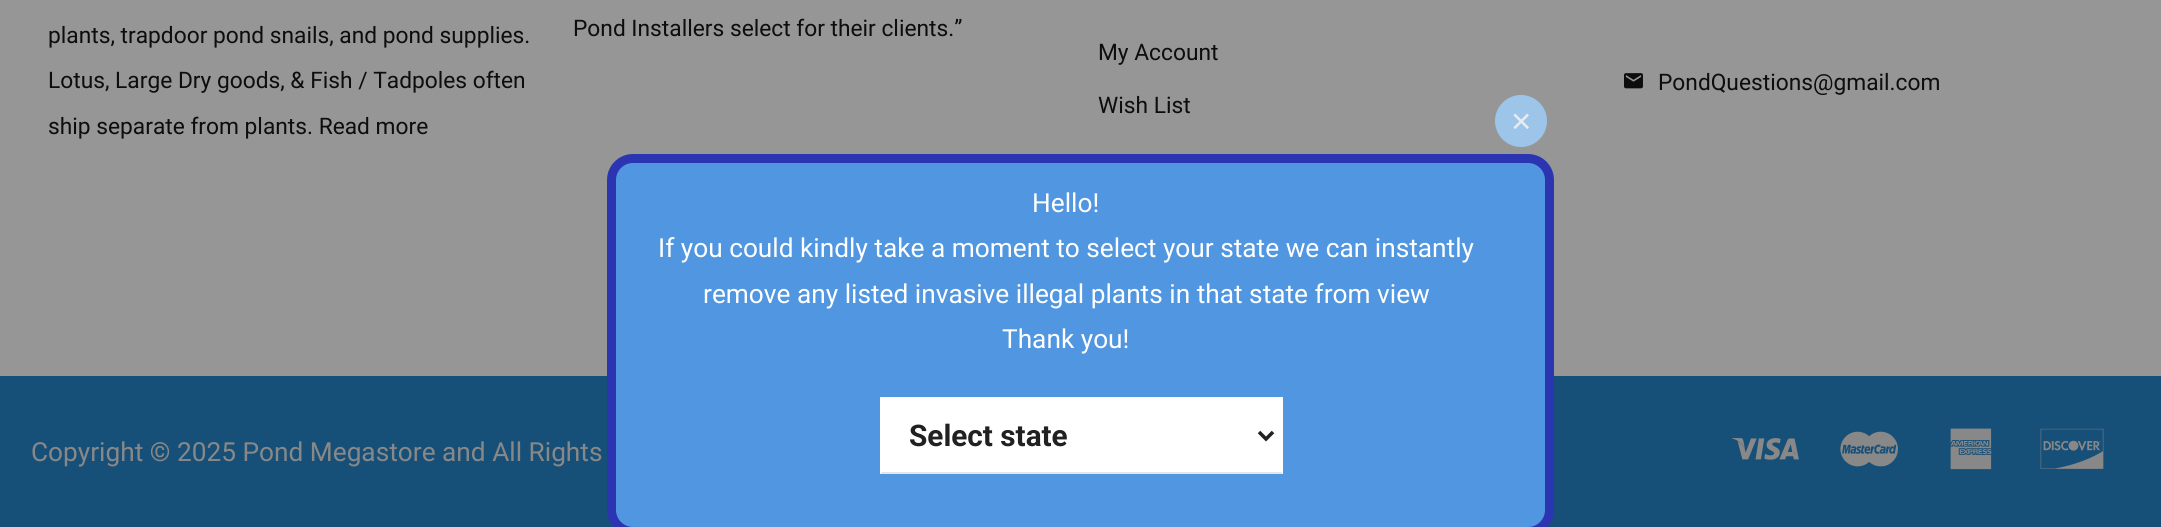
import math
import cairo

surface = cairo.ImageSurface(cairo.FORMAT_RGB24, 2161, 527)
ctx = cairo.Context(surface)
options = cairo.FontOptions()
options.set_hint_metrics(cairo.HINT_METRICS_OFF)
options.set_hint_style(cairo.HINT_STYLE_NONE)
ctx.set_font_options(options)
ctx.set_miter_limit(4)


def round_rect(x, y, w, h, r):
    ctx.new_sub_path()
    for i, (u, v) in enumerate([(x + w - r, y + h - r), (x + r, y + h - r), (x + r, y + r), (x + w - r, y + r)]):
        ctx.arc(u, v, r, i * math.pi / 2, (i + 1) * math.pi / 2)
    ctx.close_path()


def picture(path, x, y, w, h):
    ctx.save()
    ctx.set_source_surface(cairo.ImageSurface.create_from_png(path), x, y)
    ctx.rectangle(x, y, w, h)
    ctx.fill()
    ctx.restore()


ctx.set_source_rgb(0.588, 0.588, 0.588)
ctx.paint()
ctx.select_font_face("Roboto")
ctx.set_font_size(22.75)
ctx.set_source_rgb(0.051, 0.051, 0.051)
ctx.move_to(48, 43)
ctx.show_text("plants, trapdoor pond snails, and pond supplies.")
ctx.move_to(48, 88)
ctx.show_text("Lotus, Large Dry goods, & Fish / Tadpoles often")
ctx.move_to(48, 134)
ctx.show_text("ship separate from plants. Read more")
ctx.move_to(573, 36)
ctx.show_text("Pond Installers select for their clients.”")
ctx.move_to(1098, 60)
ctx.show_text("My Account")
ctx.move_to(1098, 113)
ctx.show_text("Wish List")
picture("img1.png", 1624, 73, 19, 16)
ctx.move_to(1658, 90)
ctx.show_text("PondQuestions@gmail.com")
ctx.set_source_rgb(0.086, 0.31, 0.467)
ctx.rectangle(0, 376, 2161, 151)
ctx.fill()
ctx.set_font_size(26.25)
ctx.set_source_rgb(0.533, 0.533, 0.533)
ctx.move_to(31, 461)
ctx.show_text("Copyright © 2025 Pond Megastore and All Rights")
picture("img2.png", 1731, 438, 68, 22)
picture("img3.png", 1840, 431, 58, 36)
picture("img4.png", 1950, 428, 42, 42)
picture("img5.png", 2040, 428, 64, 41)
ctx.set_source_rgb(0.318, 0.588, 0.882)
round_rect(611.5, 158.5, 938, 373, 21.5)
ctx.fill_preserve()
ctx.set_source_rgb(0.169, 0.208, 0.694)
ctx.set_line_width(9)
ctx.stroke()
ctx.set_source_rgb(0.612, 0.773, 0.914)
ctx.arc(1521, 121, 26, 0, 2 * math.pi)
ctx.fill()
ctx.select_font_face("Liberation Sans")
ctx.set_font_size(35)
ctx.set_source_rgb(0.918, 0.918, 0.918)
ctx.move_to(1511, 133)
ctx.show_text("×")
ctx.select_font_face("Roboto")
ctx.set_font_size(26.25)
ctx.set_source_rgb(1, 1, 1)
ctx.move_to(1032, 212)
ctx.show_text("Hello!")
ctx.move_to(658, 257)
ctx.show_text("If you could kindly take a moment to select your state we can instantly")
ctx.move_to(703, 303)
ctx.show_text("remove any listed invasive illegal plants in that state from view")
ctx.move_to(1002, 348)
ctx.show_text("Thank you!")
ctx.rectangle(880, 397, 403, 77)
ctx.fill()
ctx.set_source_rgb(0.898, 0.898, 0.898)
ctx.new_path()
ctx.move_to(1283, 474)
ctx.line_to(880, 474)
ctx.line_to(882, 472)
ctx.line_to(1281, 472)
ctx.close_path()
ctx.fill()
ctx.new_path()
ctx.move_to(1259, 432)
ctx.line_to(1266, 439)
ctx.line_to(1273, 432)
ctx.set_source_rgb(0.129, 0.129, 0.129)
ctx.set_line_width(3.5)
ctx.stroke()
ctx.select_font_face("Roboto", cairo.FONT_SLANT_NORMAL, cairo.FONT_WEIGHT_BOLD)
ctx.set_font_size(29.75)
ctx.move_to(909, 446)
ctx.show_text("Select state")
surface.write_to_png("page.png")
